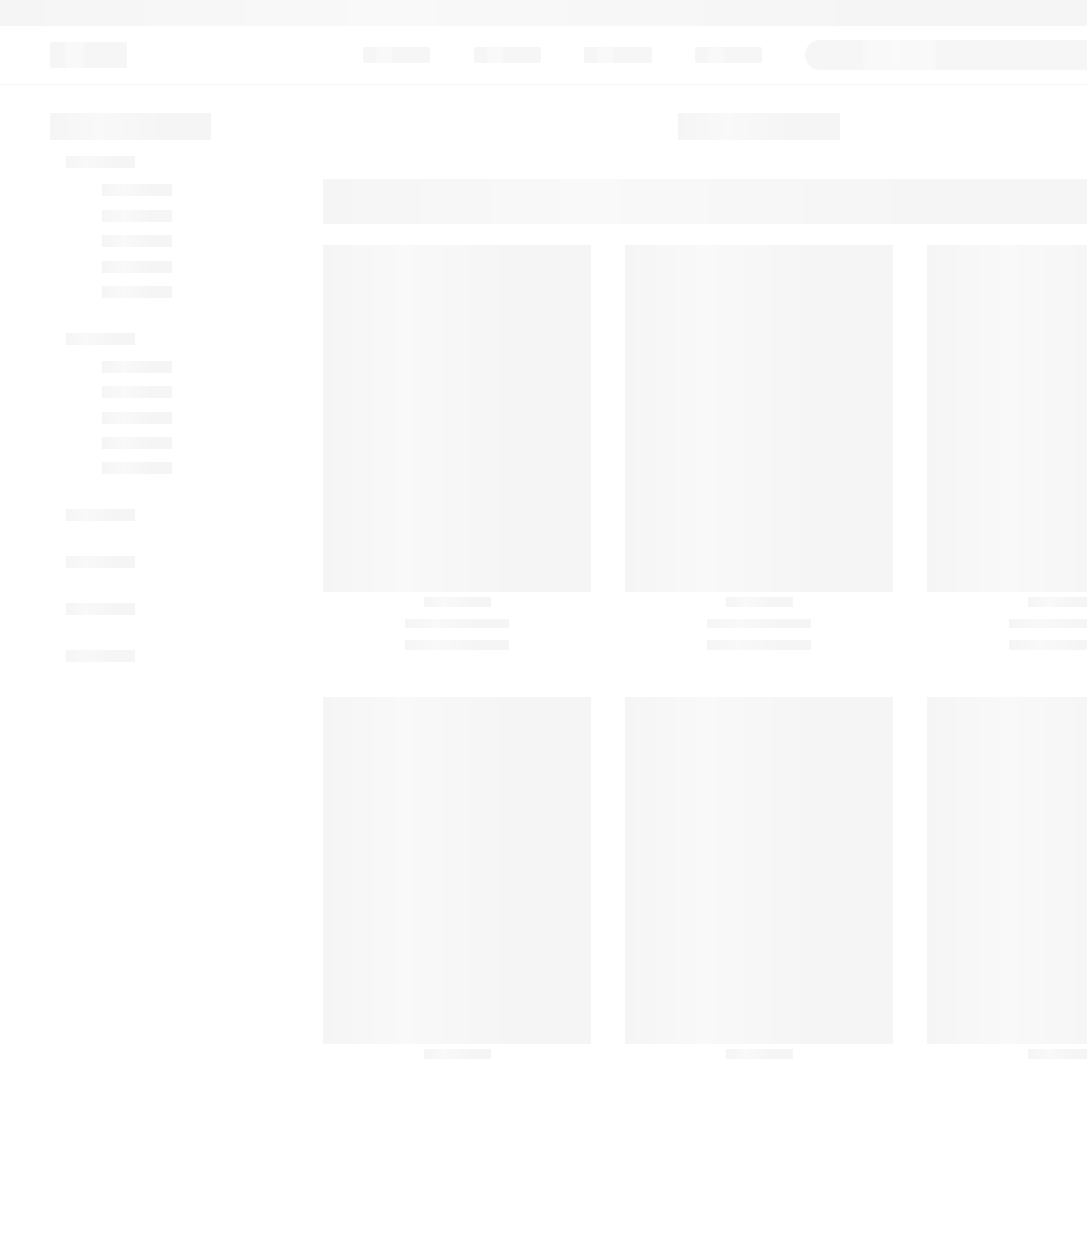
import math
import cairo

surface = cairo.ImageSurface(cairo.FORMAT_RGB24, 1087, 1248)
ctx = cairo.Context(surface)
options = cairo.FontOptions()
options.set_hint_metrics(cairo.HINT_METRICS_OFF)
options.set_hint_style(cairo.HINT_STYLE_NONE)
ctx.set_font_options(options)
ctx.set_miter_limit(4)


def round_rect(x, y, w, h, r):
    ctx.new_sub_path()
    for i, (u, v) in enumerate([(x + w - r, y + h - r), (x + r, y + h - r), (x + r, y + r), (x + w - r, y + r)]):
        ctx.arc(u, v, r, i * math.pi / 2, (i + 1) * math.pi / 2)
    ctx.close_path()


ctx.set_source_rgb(1, 1, 1)
ctx.paint()
ctx.set_source_rgb(0.961, 0.961, 0.961)
ctx.rectangle(0, 84, 1087, 1)
ctx.fill()
gradient = cairo.LinearGradient(0, 13, 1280, 13)
gradient.add_color_stop_rgba(0, 0.961, 0.961, 0.961, 1)
gradient.add_color_stop_rgba(0.3, 0.976, 0.976, 0.976, 1)
gradient.add_color_stop_rgba(0.7, 0.961, 0.961, 0.961, 1)
ctx.set_source(gradient)
ctx.rectangle(0, 0, 1087, 26)
ctx.fill()
ctx.set_source_rgb(0.961, 0.961, 0.961)
round_rect(50, 42, 77, 26, 2)
ctx.fill()
gradient = cairo.LinearGradient(50, 55, 127, 55)
gradient.add_color_stop_rgba(0, 1, 1, 1, 0)
gradient.add_color_stop_rgba(0.3, 1, 1, 1, 0.4)
gradient.add_color_stop_rgba(0.7, 1, 1, 1, 0)
ctx.set_source(gradient)
ctx.rectangle(65, 42, 19, 26)
ctx.fill()
ctx.set_source_rgb(0.961, 0.961, 0.961)
round_rect(363, 47, 67, 16, 2)
ctx.fill()
gradient = cairo.LinearGradient(363, 55, 430, 55)
gradient.add_color_stop_rgba(0, 1, 1, 1, 0)
gradient.add_color_stop_rgba(0.3, 1, 1, 1, 0.4)
gradient.add_color_stop_rgba(0.7, 1, 1, 1, 0)
ctx.set_source(gradient)
ctx.rectangle(376, 47, 16, 16)
ctx.fill()
ctx.set_source_rgb(0.961, 0.961, 0.961)
round_rect(474, 47, 67, 16, 2)
ctx.fill()
gradient = cairo.LinearGradient(474, 55, 541, 55)
gradient.add_color_stop_rgba(0, 1, 1, 1, 0)
gradient.add_color_stop_rgba(0.3, 1, 1, 1, 0.4)
gradient.add_color_stop_rgba(0.7, 1, 1, 1, 0)
ctx.set_source(gradient)
ctx.rectangle(487, 47, 16, 16)
ctx.fill()
ctx.set_source_rgb(0.961, 0.961, 0.961)
round_rect(584, 47, 68, 16, 2)
ctx.fill()
gradient = cairo.LinearGradient(584, 55, 652, 55)
gradient.add_color_stop_rgba(0, 1, 1, 1, 0)
gradient.add_color_stop_rgba(0.3, 1, 1, 1, 0.4)
gradient.add_color_stop_rgba(0.7, 1, 1, 1, 0)
ctx.set_source(gradient)
ctx.rectangle(597, 47, 17, 16)
ctx.fill()
ctx.set_source_rgb(0.961, 0.961, 0.961)
round_rect(695, 47, 67, 16, 2)
ctx.fill()
gradient = cairo.LinearGradient(695, 55, 762, 55)
gradient.add_color_stop_rgba(0, 1, 1, 1, 0)
gradient.add_color_stop_rgba(0.3, 1, 1, 1, 0.4)
gradient.add_color_stop_rgba(0.7, 1, 1, 1, 0)
ctx.set_source(gradient)
ctx.rectangle(708, 47, 16, 16)
ctx.fill()
ctx.set_source_rgb(0.961, 0.961, 0.961)
round_rect(805, 40, 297, 30, 15)
ctx.fill()
gradient = cairo.LinearGradient(805, 55, 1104, 55)
gradient.add_color_stop_rgba(0, 1, 1, 1, 0)
gradient.add_color_stop_rgba(0.3, 1, 1, 1, 0.4)
gradient.add_color_stop_rgba(0.7, 1, 1, 1, 0)
ctx.set_source(gradient)
ctx.rectangle(863, 40, 73, 30)
ctx.fill()
gradient = cairo.LinearGradient(50, 127, 211, 127)
gradient.add_color_stop_rgba(0, 0.961, 0.961, 0.961, 1)
gradient.add_color_stop_rgba(0.3, 0.976, 0.976, 0.976, 1)
gradient.add_color_stop_rgba(0.7, 0.961, 0.961, 0.961, 1)
ctx.set_source(gradient)
ctx.rectangle(50, 113, 161, 27)
ctx.fill()
gradient = cairo.LinearGradient(66, 162, 135, 162)
gradient.add_color_stop_rgba(0, 0.961, 0.961, 0.961, 1)
gradient.add_color_stop_rgba(0.3, 0.976, 0.976, 0.976, 1)
gradient.add_color_stop_rgba(0.7, 0.961, 0.961, 0.961, 1)
ctx.set_source(gradient)
ctx.rectangle(66, 156, 69, 12)
ctx.fill()
gradient = cairo.LinearGradient(102, 190, 172, 190)
gradient.add_color_stop_rgba(0, 0.961, 0.961, 0.961, 1)
gradient.add_color_stop_rgba(0.3, 0.976, 0.976, 0.976, 1)
gradient.add_color_stop_rgba(0.7, 0.961, 0.961, 0.961, 1)
ctx.set_source(gradient)
ctx.rectangle(102, 184, 70, 12)
ctx.fill()
gradient = cairo.LinearGradient(102, 216, 172, 216)
gradient.add_color_stop_rgba(0, 0.961, 0.961, 0.961, 1)
gradient.add_color_stop_rgba(0.3, 0.976, 0.976, 0.976, 1)
gradient.add_color_stop_rgba(0.7, 0.961, 0.961, 0.961, 1)
ctx.set_source(gradient)
ctx.rectangle(102, 210, 70, 12)
ctx.fill()
gradient = cairo.LinearGradient(102, 241, 172, 241)
gradient.add_color_stop_rgba(0, 0.961, 0.961, 0.961, 1)
gradient.add_color_stop_rgba(0.3, 0.976, 0.976, 0.976, 1)
gradient.add_color_stop_rgba(0.7, 0.961, 0.961, 0.961, 1)
ctx.set_source(gradient)
ctx.rectangle(102, 235, 70, 12)
ctx.fill()
gradient = cairo.LinearGradient(102, 267, 172, 267)
gradient.add_color_stop_rgba(0, 0.961, 0.961, 0.961, 1)
gradient.add_color_stop_rgba(0.3, 0.976, 0.976, 0.976, 1)
gradient.add_color_stop_rgba(0.7, 0.961, 0.961, 0.961, 1)
ctx.set_source(gradient)
ctx.rectangle(102, 261, 70, 12)
ctx.fill()
gradient = cairo.LinearGradient(102, 292, 172, 292)
gradient.add_color_stop_rgba(0, 0.961, 0.961, 0.961, 1)
gradient.add_color_stop_rgba(0.3, 0.976, 0.976, 0.976, 1)
gradient.add_color_stop_rgba(0.7, 0.961, 0.961, 0.961, 1)
ctx.set_source(gradient)
ctx.rectangle(102, 286, 70, 12)
ctx.fill()
gradient = cairo.LinearGradient(66, 339, 135, 339)
gradient.add_color_stop_rgba(0, 0.961, 0.961, 0.961, 1)
gradient.add_color_stop_rgba(0.3, 0.976, 0.976, 0.976, 1)
gradient.add_color_stop_rgba(0.7, 0.961, 0.961, 0.961, 1)
ctx.set_source(gradient)
ctx.rectangle(66, 333, 69, 12)
ctx.fill()
gradient = cairo.LinearGradient(102, 367, 172, 367)
gradient.add_color_stop_rgba(0, 0.961, 0.961, 0.961, 1)
gradient.add_color_stop_rgba(0.3, 0.976, 0.976, 0.976, 1)
gradient.add_color_stop_rgba(0.7, 0.961, 0.961, 0.961, 1)
ctx.set_source(gradient)
ctx.rectangle(102, 361, 70, 12)
ctx.fill()
gradient = cairo.LinearGradient(102, 392, 172, 392)
gradient.add_color_stop_rgba(0, 0.961, 0.961, 0.961, 1)
gradient.add_color_stop_rgba(0.3, 0.976, 0.976, 0.976, 1)
gradient.add_color_stop_rgba(0.7, 0.961, 0.961, 0.961, 1)
ctx.set_source(gradient)
ctx.rectangle(102, 386, 70, 12)
ctx.fill()
gradient = cairo.LinearGradient(102, 418, 172, 418)
gradient.add_color_stop_rgba(0, 0.961, 0.961, 0.961, 1)
gradient.add_color_stop_rgba(0.3, 0.976, 0.976, 0.976, 1)
gradient.add_color_stop_rgba(0.7, 0.961, 0.961, 0.961, 1)
ctx.set_source(gradient)
ctx.rectangle(102, 412, 70, 12)
ctx.fill()
gradient = cairo.LinearGradient(102, 443, 172, 443)
gradient.add_color_stop_rgba(0, 0.961, 0.961, 0.961, 1)
gradient.add_color_stop_rgba(0.3, 0.976, 0.976, 0.976, 1)
gradient.add_color_stop_rgba(0.7, 0.961, 0.961, 0.961, 1)
ctx.set_source(gradient)
ctx.rectangle(102, 437, 70, 12)
ctx.fill()
gradient = cairo.LinearGradient(102, 468, 172, 468)
gradient.add_color_stop_rgba(0, 0.961, 0.961, 0.961, 1)
gradient.add_color_stop_rgba(0.3, 0.976, 0.976, 0.976, 1)
gradient.add_color_stop_rgba(0.7, 0.961, 0.961, 0.961, 1)
ctx.set_source(gradient)
ctx.rectangle(102, 462, 70, 12)
ctx.fill()
gradient = cairo.LinearGradient(66, 515, 135, 515)
gradient.add_color_stop_rgba(0, 0.961, 0.961, 0.961, 1)
gradient.add_color_stop_rgba(0.3, 0.976, 0.976, 0.976, 1)
gradient.add_color_stop_rgba(0.7, 0.961, 0.961, 0.961, 1)
ctx.set_source(gradient)
ctx.rectangle(66, 509, 69, 12)
ctx.fill()
gradient = cairo.LinearGradient(66, 562, 135, 562)
gradient.add_color_stop_rgba(0, 0.961, 0.961, 0.961, 1)
gradient.add_color_stop_rgba(0.3, 0.976, 0.976, 0.976, 1)
gradient.add_color_stop_rgba(0.7, 0.961, 0.961, 0.961, 1)
ctx.set_source(gradient)
ctx.rectangle(66, 556, 69, 12)
ctx.fill()
gradient = cairo.LinearGradient(66, 609, 135, 609)
gradient.add_color_stop_rgba(0, 0.961, 0.961, 0.961, 1)
gradient.add_color_stop_rgba(0.3, 0.976, 0.976, 0.976, 1)
gradient.add_color_stop_rgba(0.7, 0.961, 0.961, 0.961, 1)
ctx.set_source(gradient)
ctx.rectangle(66, 603, 69, 12)
ctx.fill()
gradient = cairo.LinearGradient(66, 656, 135, 656)
gradient.add_color_stop_rgba(0, 0.961, 0.961, 0.961, 1)
gradient.add_color_stop_rgba(0.3, 0.976, 0.976, 0.976, 1)
gradient.add_color_stop_rgba(0.7, 0.961, 0.961, 0.961, 1)
ctx.set_source(gradient)
ctx.rectangle(66, 650, 69, 12)
ctx.fill()
gradient = cairo.LinearGradient(678, 127, 840, 127)
gradient.add_color_stop_rgba(0, 0.961, 0.961, 0.961, 1)
gradient.add_color_stop_rgba(0.3, 0.976, 0.976, 0.976, 1)
gradient.add_color_stop_rgba(0.7, 0.961, 0.961, 0.961, 1)
ctx.set_source(gradient)
ctx.rectangle(678, 113, 162, 27)
ctx.fill()
gradient = cairo.LinearGradient(323, 202, 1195, 201)
gradient.add_color_stop_rgba(0, 0.961, 0.961, 0.961, 1)
gradient.add_color_stop_rgba(0.3, 0.976, 0.976, 0.976, 1)
gradient.add_color_stop_rgba(0.7, 0.961, 0.961, 0.961, 1)
ctx.set_source(gradient)
ctx.rectangle(323, 179, 764, 45)
ctx.fill()
gradient = cairo.LinearGradient(323, 419, 591, 419)
gradient.add_color_stop_rgba(0, 0.961, 0.961, 0.961, 1)
gradient.add_color_stop_rgba(0.3, 0.976, 0.976, 0.976, 1)
gradient.add_color_stop_rgba(0.7, 0.961, 0.961, 0.961, 1)
ctx.set_source(gradient)
ctx.rectangle(323, 245, 268, 347)
ctx.fill()
gradient = cairo.LinearGradient(424, 602, 491, 602)
gradient.add_color_stop_rgba(0, 0.961, 0.961, 0.961, 1)
gradient.add_color_stop_rgba(0.3, 0.976, 0.976, 0.976, 1)
gradient.add_color_stop_rgba(0.7, 0.961, 0.961, 0.961, 1)
ctx.set_source(gradient)
ctx.rectangle(424, 597, 67, 10)
ctx.fill()
gradient = cairo.LinearGradient(405, 624, 509, 624)
gradient.add_color_stop_rgba(0, 0.961, 0.961, 0.961, 1)
gradient.add_color_stop_rgba(0.3, 0.976, 0.976, 0.976, 1)
gradient.add_color_stop_rgba(0.7, 0.961, 0.961, 0.961, 1)
ctx.set_source(gradient)
ctx.rectangle(405, 619, 104, 9)
ctx.fill()
gradient = cairo.LinearGradient(405, 645, 509, 645)
gradient.add_color_stop_rgba(0, 0.961, 0.961, 0.961, 1)
gradient.add_color_stop_rgba(0.3, 0.976, 0.976, 0.976, 1)
gradient.add_color_stop_rgba(0.7, 0.961, 0.961, 0.961, 1)
ctx.set_source(gradient)
ctx.rectangle(405, 640, 104, 10)
ctx.fill()
gradient = cairo.LinearGradient(625, 419, 893, 419)
gradient.add_color_stop_rgba(0, 0.961, 0.961, 0.961, 1)
gradient.add_color_stop_rgba(0.3, 0.976, 0.976, 0.976, 1)
gradient.add_color_stop_rgba(0.7, 0.961, 0.961, 0.961, 1)
ctx.set_source(gradient)
ctx.rectangle(625, 245, 268, 347)
ctx.fill()
gradient = cairo.LinearGradient(726, 602, 793, 602)
gradient.add_color_stop_rgba(0, 0.961, 0.961, 0.961, 1)
gradient.add_color_stop_rgba(0.3, 0.976, 0.976, 0.976, 1)
gradient.add_color_stop_rgba(0.7, 0.961, 0.961, 0.961, 1)
ctx.set_source(gradient)
ctx.rectangle(726, 597, 67, 10)
ctx.fill()
gradient = cairo.LinearGradient(707, 624, 811, 624)
gradient.add_color_stop_rgba(0, 0.961, 0.961, 0.961, 1)
gradient.add_color_stop_rgba(0.3, 0.976, 0.976, 0.976, 1)
gradient.add_color_stop_rgba(0.7, 0.961, 0.961, 0.961, 1)
ctx.set_source(gradient)
ctx.rectangle(707, 619, 104, 9)
ctx.fill()
gradient = cairo.LinearGradient(707, 645, 811, 645)
gradient.add_color_stop_rgba(0, 0.961, 0.961, 0.961, 1)
gradient.add_color_stop_rgba(0.3, 0.976, 0.976, 0.976, 1)
gradient.add_color_stop_rgba(0.7, 0.961, 0.961, 0.961, 1)
ctx.set_source(gradient)
ctx.rectangle(707, 640, 104, 10)
ctx.fill()
gradient = cairo.LinearGradient(927, 419, 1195, 419)
gradient.add_color_stop_rgba(0, 0.961, 0.961, 0.961, 1)
gradient.add_color_stop_rgba(0.3, 0.976, 0.976, 0.976, 1)
gradient.add_color_stop_rgba(0.7, 0.961, 0.961, 0.961, 1)
ctx.set_source(gradient)
ctx.rectangle(927, 245, 160, 347)
ctx.fill()
gradient = cairo.LinearGradient(1028, 602, 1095, 602)
gradient.add_color_stop_rgba(0, 0.961, 0.961, 0.961, 1)
gradient.add_color_stop_rgba(0.3, 0.976, 0.976, 0.976, 1)
gradient.add_color_stop_rgba(0.7, 0.961, 0.961, 0.961, 1)
ctx.set_source(gradient)
ctx.rectangle(1028, 597, 59, 10)
ctx.fill()
gradient = cairo.LinearGradient(1009, 624, 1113, 624)
gradient.add_color_stop_rgba(0, 0.961, 0.961, 0.961, 1)
gradient.add_color_stop_rgba(0.3, 0.976, 0.976, 0.976, 1)
gradient.add_color_stop_rgba(0.7, 0.961, 0.961, 0.961, 1)
ctx.set_source(gradient)
ctx.rectangle(1009, 619, 78, 9)
ctx.fill()
gradient = cairo.LinearGradient(1009, 645, 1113, 645)
gradient.add_color_stop_rgba(0, 0.961, 0.961, 0.961, 1)
gradient.add_color_stop_rgba(0.3, 0.976, 0.976, 0.976, 1)
gradient.add_color_stop_rgba(0.7, 0.961, 0.961, 0.961, 1)
ctx.set_source(gradient)
ctx.rectangle(1009, 640, 78, 10)
ctx.fill()
gradient = cairo.LinearGradient(323, 871, 591, 871)
gradient.add_color_stop_rgba(0, 0.961, 0.961, 0.961, 1)
gradient.add_color_stop_rgba(0.3, 0.976, 0.976, 0.976, 1)
gradient.add_color_stop_rgba(0.7, 0.961, 0.961, 0.961, 1)
ctx.set_source(gradient)
ctx.rectangle(323, 697, 268, 347)
ctx.fill()
gradient = cairo.LinearGradient(424, 1054, 491, 1054)
gradient.add_color_stop_rgba(0, 0.961, 0.961, 0.961, 1)
gradient.add_color_stop_rgba(0.3, 0.976, 0.976, 0.976, 1)
gradient.add_color_stop_rgba(0.7, 0.961, 0.961, 0.961, 1)
ctx.set_source(gradient)
ctx.rectangle(424, 1049, 67, 10)
ctx.fill()
gradient = cairo.LinearGradient(625, 871, 893, 871)
gradient.add_color_stop_rgba(0, 0.961, 0.961, 0.961, 1)
gradient.add_color_stop_rgba(0.3, 0.976, 0.976, 0.976, 1)
gradient.add_color_stop_rgba(0.7, 0.961, 0.961, 0.961, 1)
ctx.set_source(gradient)
ctx.rectangle(625, 697, 268, 347)
ctx.fill()
gradient = cairo.LinearGradient(726, 1054, 793, 1054)
gradient.add_color_stop_rgba(0, 0.961, 0.961, 0.961, 1)
gradient.add_color_stop_rgba(0.3, 0.976, 0.976, 0.976, 1)
gradient.add_color_stop_rgba(0.7, 0.961, 0.961, 0.961, 1)
ctx.set_source(gradient)
ctx.rectangle(726, 1049, 67, 10)
ctx.fill()
gradient = cairo.LinearGradient(927, 871, 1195, 871)
gradient.add_color_stop_rgba(0, 0.961, 0.961, 0.961, 1)
gradient.add_color_stop_rgba(0.3, 0.976, 0.976, 0.976, 1)
gradient.add_color_stop_rgba(0.7, 0.961, 0.961, 0.961, 1)
ctx.set_source(gradient)
ctx.rectangle(927, 697, 160, 347)
ctx.fill()
gradient = cairo.LinearGradient(1028, 1054, 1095, 1054)
gradient.add_color_stop_rgba(0, 0.961, 0.961, 0.961, 1)
gradient.add_color_stop_rgba(0.3, 0.976, 0.976, 0.976, 1)
gradient.add_color_stop_rgba(0.7, 0.961, 0.961, 0.961, 1)
ctx.set_source(gradient)
ctx.rectangle(1028, 1049, 59, 10)
ctx.fill()
surface.write_to_png("page.png")
